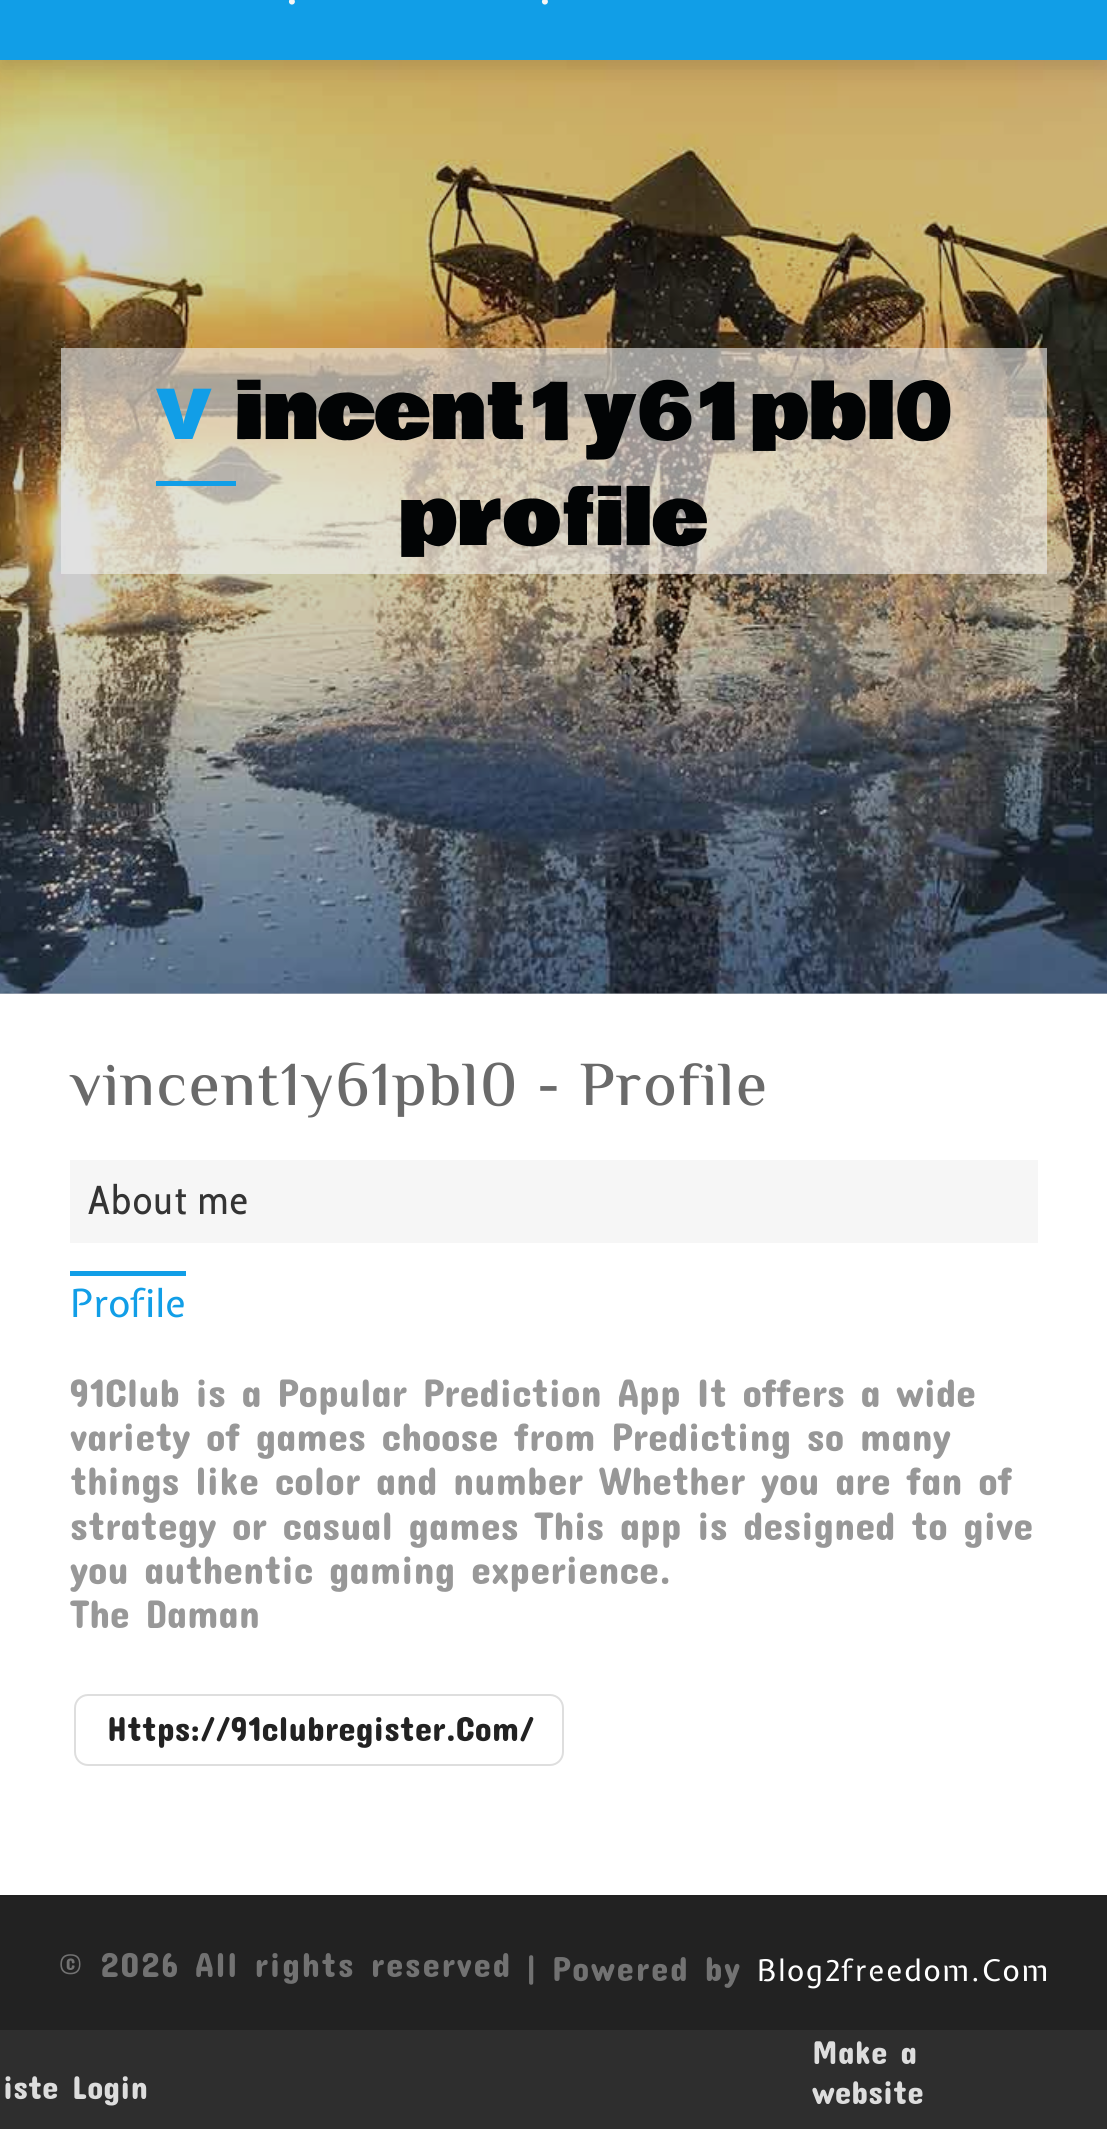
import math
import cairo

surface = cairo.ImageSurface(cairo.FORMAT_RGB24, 1107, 2129)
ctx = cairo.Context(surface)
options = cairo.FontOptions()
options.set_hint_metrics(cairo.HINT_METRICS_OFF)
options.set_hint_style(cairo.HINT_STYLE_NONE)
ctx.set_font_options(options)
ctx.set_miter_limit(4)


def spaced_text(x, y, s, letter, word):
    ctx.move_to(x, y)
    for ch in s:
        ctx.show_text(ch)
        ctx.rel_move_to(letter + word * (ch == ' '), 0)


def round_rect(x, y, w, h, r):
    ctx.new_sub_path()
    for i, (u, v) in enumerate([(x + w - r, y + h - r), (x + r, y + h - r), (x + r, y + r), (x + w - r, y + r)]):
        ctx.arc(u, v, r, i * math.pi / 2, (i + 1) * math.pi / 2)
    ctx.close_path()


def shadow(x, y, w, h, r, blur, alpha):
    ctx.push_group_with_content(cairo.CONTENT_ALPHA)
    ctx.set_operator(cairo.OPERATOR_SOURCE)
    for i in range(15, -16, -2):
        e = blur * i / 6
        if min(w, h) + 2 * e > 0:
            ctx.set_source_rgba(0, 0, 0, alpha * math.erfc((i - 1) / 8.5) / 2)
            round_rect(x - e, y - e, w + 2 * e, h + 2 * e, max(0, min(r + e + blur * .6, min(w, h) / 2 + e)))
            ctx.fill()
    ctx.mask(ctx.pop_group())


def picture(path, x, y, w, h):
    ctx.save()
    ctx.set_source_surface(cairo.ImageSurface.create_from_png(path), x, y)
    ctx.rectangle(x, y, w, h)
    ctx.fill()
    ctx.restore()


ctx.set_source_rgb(1, 1, 1)
ctx.paint()
ctx.set_source_rgb(0.804, 0.804, 0.808)
ctx.rectangle(0, 993, 1107, 1)
ctx.fill()
picture("img1.png", 0, 60, 1107, 934)
ctx.set_source_rgb(0, 0, 0)
shadow(0, -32, 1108, 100, 0, 10.5, 0.1)
shadow(0, -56, 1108, 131, 0, 33, 0.05)
ctx.set_source_rgb(0.067, 0.62, 0.906)
ctx.rectangle(0, 0, 1107, 60)
ctx.fill()
ctx.select_font_face("Expletus Sans", cairo.FONT_SLANT_NORMAL, cairo.FONT_WEIGHT_BOLD)
ctx.set_font_size(37)
ctx.set_source_rgb(0.961, 0.961, 0.961)
ctx.move_to(286, 4)
ctx.show_text(".")
ctx.move_to(539, 4)
ctx.show_text(".")
ctx.set_source_rgba(0.933, 0.933, 0.933, 0.6)
ctx.rectangle(61, 348, 986, 226)
ctx.fill()
ctx.select_font_face("Noto Sans Black")
ctx.set_font_size(91)
ctx.set_source_rgb(0.067, 0.62, 0.906)
ctx.move_to(156, 439)
ctx.show_text("v")
ctx.rectangle(156, 481, 80, 5)
ctx.fill()
ctx.select_font_face("Bowlby One")
ctx.set_font_size(77)
ctx.set_source_rgb(0.008, 0.016, 0.02)
ctx.move_to(235, 439)
ctx.show_text("incent1y61pbl0")
ctx.move_to(400, 545)
ctx.show_text("profile")
ctx.select_font_face("El Messiri Medium")
ctx.set_font_size(62.5)
ctx.set_source_rgb(0.416, 0.416, 0.416)
spaced_text(70, 1105, "vincent1y61pbl0 - Profile", 1.75, 0)
ctx.set_source_rgb(0.961, 0.961, 0.961)
ctx.rectangle(70, 1160, 968, 83)
ctx.fill()
ctx.select_font_face("Cabin Condensed")
ctx.set_font_size(40.25)
ctx.set_source_rgb(0.204, 0.204, 0.204)
spaced_text(88, 1214, "About me", 1.75, 0)
ctx.select_font_face("Expletus Sans")
ctx.set_font_size(38.5)
ctx.set_source_rgb(0.067, 0.62, 0.906)
ctx.move_to(70, 1317)
ctx.show_text("Profile")
ctx.rectangle(70, 1271, 116, 5)
ctx.fill()
ctx.select_font_face("Concert One")
ctx.set_font_size(40.25)
ctx.set_source_rgb(0.596, 0.596, 0.596)
ctx.move_to(70, 1407)
ctx.show_text("91Club is a Popular Prediction App It offers a wide")
ctx.move_to(70, 1451)
ctx.show_text("variety of games choose from Predicting so many")
ctx.move_to(70, 1495)
ctx.show_text("things like color and number Whether you are fan of")
ctx.move_to(70, 1540)
ctx.show_text("strategy or casual games This app is designed to give")
ctx.move_to(70, 1584)
ctx.show_text("you authentic gaming experience.")
ctx.move_to(70, 1628)
ctx.show_text("The Daman")
round_rect(75, 1695, 488, 70, 13)
ctx.set_source_rgb(0.871, 0.871, 0.871)
ctx.stroke()
ctx.set_font_size(35)
ctx.set_source_rgb(0.133, 0.133, 0.133)
ctx.move_to(107, 1741)
ctx.show_text("Https://91clubregister.Com/")
ctx.rectangle(0, 1897, 1107, 133)
ctx.fill()
ctx.set_source_rgb(0.125, 0.125, 0.125)
ctx.rectangle(0, 1895, 1107, 2)
ctx.fill()
ctx.set_source_rgb(0.447, 0.447, 0.447)
spaced_text(58, 1977, "© 2026 All rights reserved", 1.75, 0)
spaced_text(526, 1982, "|", 1.75, 0)
spaced_text(552, 1981, "Powered by", 1.75, 0)
ctx.select_font_face("Expletus Sans")
ctx.set_font_size(29.75)
ctx.set_source_rgb(1, 1, 1)
spaced_text(757, 1981, "Blog2freedom.Com", 1.75, 0)
ctx.set_source_rgb(0.18, 0.18, 0.18)
ctx.rectangle(0, 2030, 1107, 99)
ctx.fill()
ctx.select_font_face("Concert One")
ctx.set_font_size(33.25)
ctx.set_source_rgb(0.867, 0.867, 0.867)
ctx.move_to(3, 2099)
ctx.show_text("iste Login")
ctx.move_to(812, 2064)
ctx.show_text("Make a")
ctx.move_to(812, 2104)
ctx.show_text("website")
surface.write_to_png("page.png")
